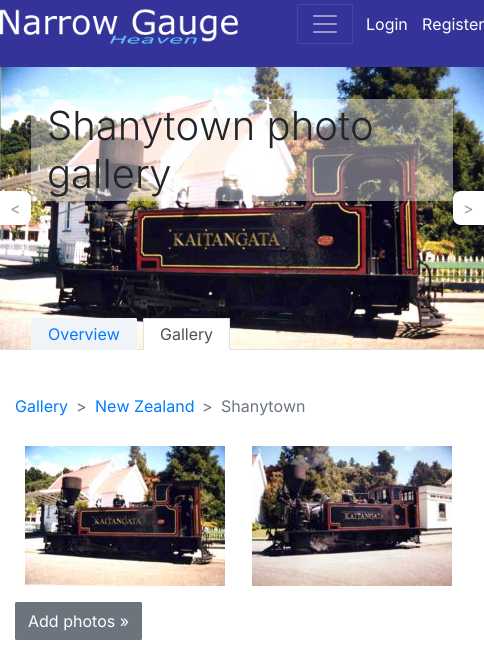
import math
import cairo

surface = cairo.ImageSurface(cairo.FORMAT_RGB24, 484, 660)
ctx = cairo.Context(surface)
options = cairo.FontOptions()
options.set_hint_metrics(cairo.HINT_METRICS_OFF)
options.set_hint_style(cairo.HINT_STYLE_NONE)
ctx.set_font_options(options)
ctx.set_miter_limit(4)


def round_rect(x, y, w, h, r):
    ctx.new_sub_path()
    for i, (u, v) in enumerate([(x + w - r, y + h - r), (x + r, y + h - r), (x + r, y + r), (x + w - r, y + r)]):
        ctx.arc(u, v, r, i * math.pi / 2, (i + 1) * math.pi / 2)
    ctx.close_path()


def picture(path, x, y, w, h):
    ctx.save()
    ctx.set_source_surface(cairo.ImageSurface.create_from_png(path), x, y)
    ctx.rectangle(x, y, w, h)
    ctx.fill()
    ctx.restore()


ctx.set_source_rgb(1, 1, 1)
ctx.paint()
ctx.set_source_rgb(0.2, 0.2, 0.6)
ctx.rectangle(0, 0, 484, 67)
ctx.fill()
picture("img1.png", 0, 8, 238, 36)
round_rect(297.5, 4.5, 55, 39, 1)
ctx.set_source_rgb(0.278, 0.278, 0.639)
ctx.set_line_width(1)
ctx.stroke()
picture("img2.png", 313, 15, 24, 18)
ctx.select_font_face("Inter")
ctx.set_font_size(16)
ctx.set_source_rgb(1, 1, 1)
ctx.move_to(366, 30)
ctx.show_text("Login")
ctx.move_to(422, 30)
ctx.show_text("Register")
picture("img3.png", 0, 67, 484, 282)
ctx.set_source_rgb(0.871, 0.886, 0.902)
ctx.rectangle(0, 349, 484, 1)
ctx.fill()
ctx.set_source_rgba(1, 1, 1, 0.4)
ctx.rectangle(31, 99, 422, 102)
ctx.fill()
ctx.select_font_face("Inter Light")
ctx.set_font_size(40)
ctx.set_source_rgb(0.129, 0.145, 0.161)
ctx.move_to(47, 140)
ctx.show_text("Shanytown photo")
ctx.move_to(47, 188)
ctx.show_text("gallery")
ctx.set_source_rgb(1, 1, 1)
ctx.new_path()
ctx.move_to(0, 191)
ctx.line_to(23, 191)
ctx.curve_to(27.5, 191, 31, 194.5, 31, 199)
ctx.line_to(31, 217)
ctx.curve_to(31, 221.5, 27.5, 225, 23, 225)
ctx.line_to(0, 225)
ctx.close_path()
ctx.fill()
ctx.select_font_face("Inter")
ctx.set_font_size(16)
ctx.set_source_rgb(0.6, 0.6, 0.6)
ctx.move_to(10, 214)
ctx.show_text("<")
ctx.set_source_rgb(1, 1, 1)
ctx.new_path()
ctx.move_to(461, 191)
ctx.line_to(484, 191)
ctx.line_to(484, 225)
ctx.line_to(461, 225)
ctx.curve_to(456.5, 225, 453, 221.5, 453, 217)
ctx.line_to(453, 199)
ctx.curve_to(453, 194.5, 456.5, 191, 461, 191)
ctx.close_path()
ctx.fill()
ctx.set_source_rgb(0.6, 0.6, 0.6)
ctx.move_to(463, 214)
ctx.show_text(">")
ctx.set_source_rgb(0.941, 0.957, 0.973)
ctx.new_path()
ctx.move_to(32.5, 318)
ctx.line_to(135.5, 318)
ctx.curve_to(136.5, 318, 137, 318.5, 137, 319.5)
ctx.line_to(137, 350)
ctx.line_to(31, 350)
ctx.line_to(31, 319.5)
ctx.curve_to(31, 318.5, 31.5, 318, 32.5, 318)
ctx.close_path()
ctx.fill()
ctx.set_source_rgb(0, 0.482, 1)
ctx.move_to(48, 340)
ctx.show_text("Overview")
ctx.set_source_rgb(1, 1, 1)
ctx.new_path()
ctx.move_to(144.5, 318)
ctx.line_to(228.5, 318)
ctx.curve_to(229.5, 318, 230, 318.5, 230, 319.5)
ctx.line_to(230, 350)
ctx.line_to(143, 350)
ctx.line_to(143, 319.5)
ctx.curve_to(143, 318.5, 143.5, 318, 144.5, 318)
ctx.close_path()
ctx.fill()
ctx.set_source_rgb(0.871, 0.886, 0.902)
ctx.new_path()
ctx.move_to(144, 318)
ctx.line_to(144, 319)
ctx.line_to(229, 319)
ctx.line_to(230, 318)
ctx.line_to(229, 318)
ctx.close_path()
ctx.fill()
ctx.new_path()
ctx.move_to(230, 350)
ctx.line_to(230, 319)
ctx.line_to(229.5, 318.5)
ctx.line_to(229, 319)
ctx.line_to(229, 349)
ctx.close_path()
ctx.fill()
ctx.set_source_rgb(1, 1, 1)
ctx.new_path()
ctx.move_to(230, 350)
ctx.line_to(229, 349)
ctx.line_to(144, 349)
ctx.line_to(143, 350)
ctx.close_path()
ctx.fill()
ctx.set_source_rgb(0.871, 0.886, 0.902)
ctx.new_path()
ctx.move_to(144, 319)
ctx.line_to(143.5, 318.5)
ctx.line_to(143, 319)
ctx.line_to(143, 350)
ctx.line_to(144, 349)
ctx.close_path()
ctx.fill()
ctx.set_source_rgb(0.286, 0.314, 0.341)
ctx.move_to(160, 340)
ctx.show_text("Gallery")
ctx.set_source_rgb(0, 0.482, 1)
ctx.move_to(15, 412)
ctx.show_text("Gallery")
ctx.set_source_rgb(0.424, 0.459, 0.49)
ctx.move_to(76, 412)
ctx.show_text(">")
ctx.set_source_rgb(0, 0.482, 1)
ctx.move_to(95, 412)
ctx.show_text("New Zealand")
ctx.set_source_rgb(0.424, 0.459, 0.49)
ctx.move_to(202, 412)
ctx.show_text(">")
ctx.move_to(221, 412)
ctx.show_text("Shanytown")
picture("img4.png", 25, 446, 200, 140)
picture("img5.png", 252, 446, 200, 140)
round_rect(15.5, 602.5, 126, 37, 1)
ctx.fill_preserve()
ctx.stroke()
ctx.set_source_rgb(1, 1, 1)
ctx.move_to(28, 627)
ctx.show_text("Add photos »")
surface.write_to_png("page.png")
